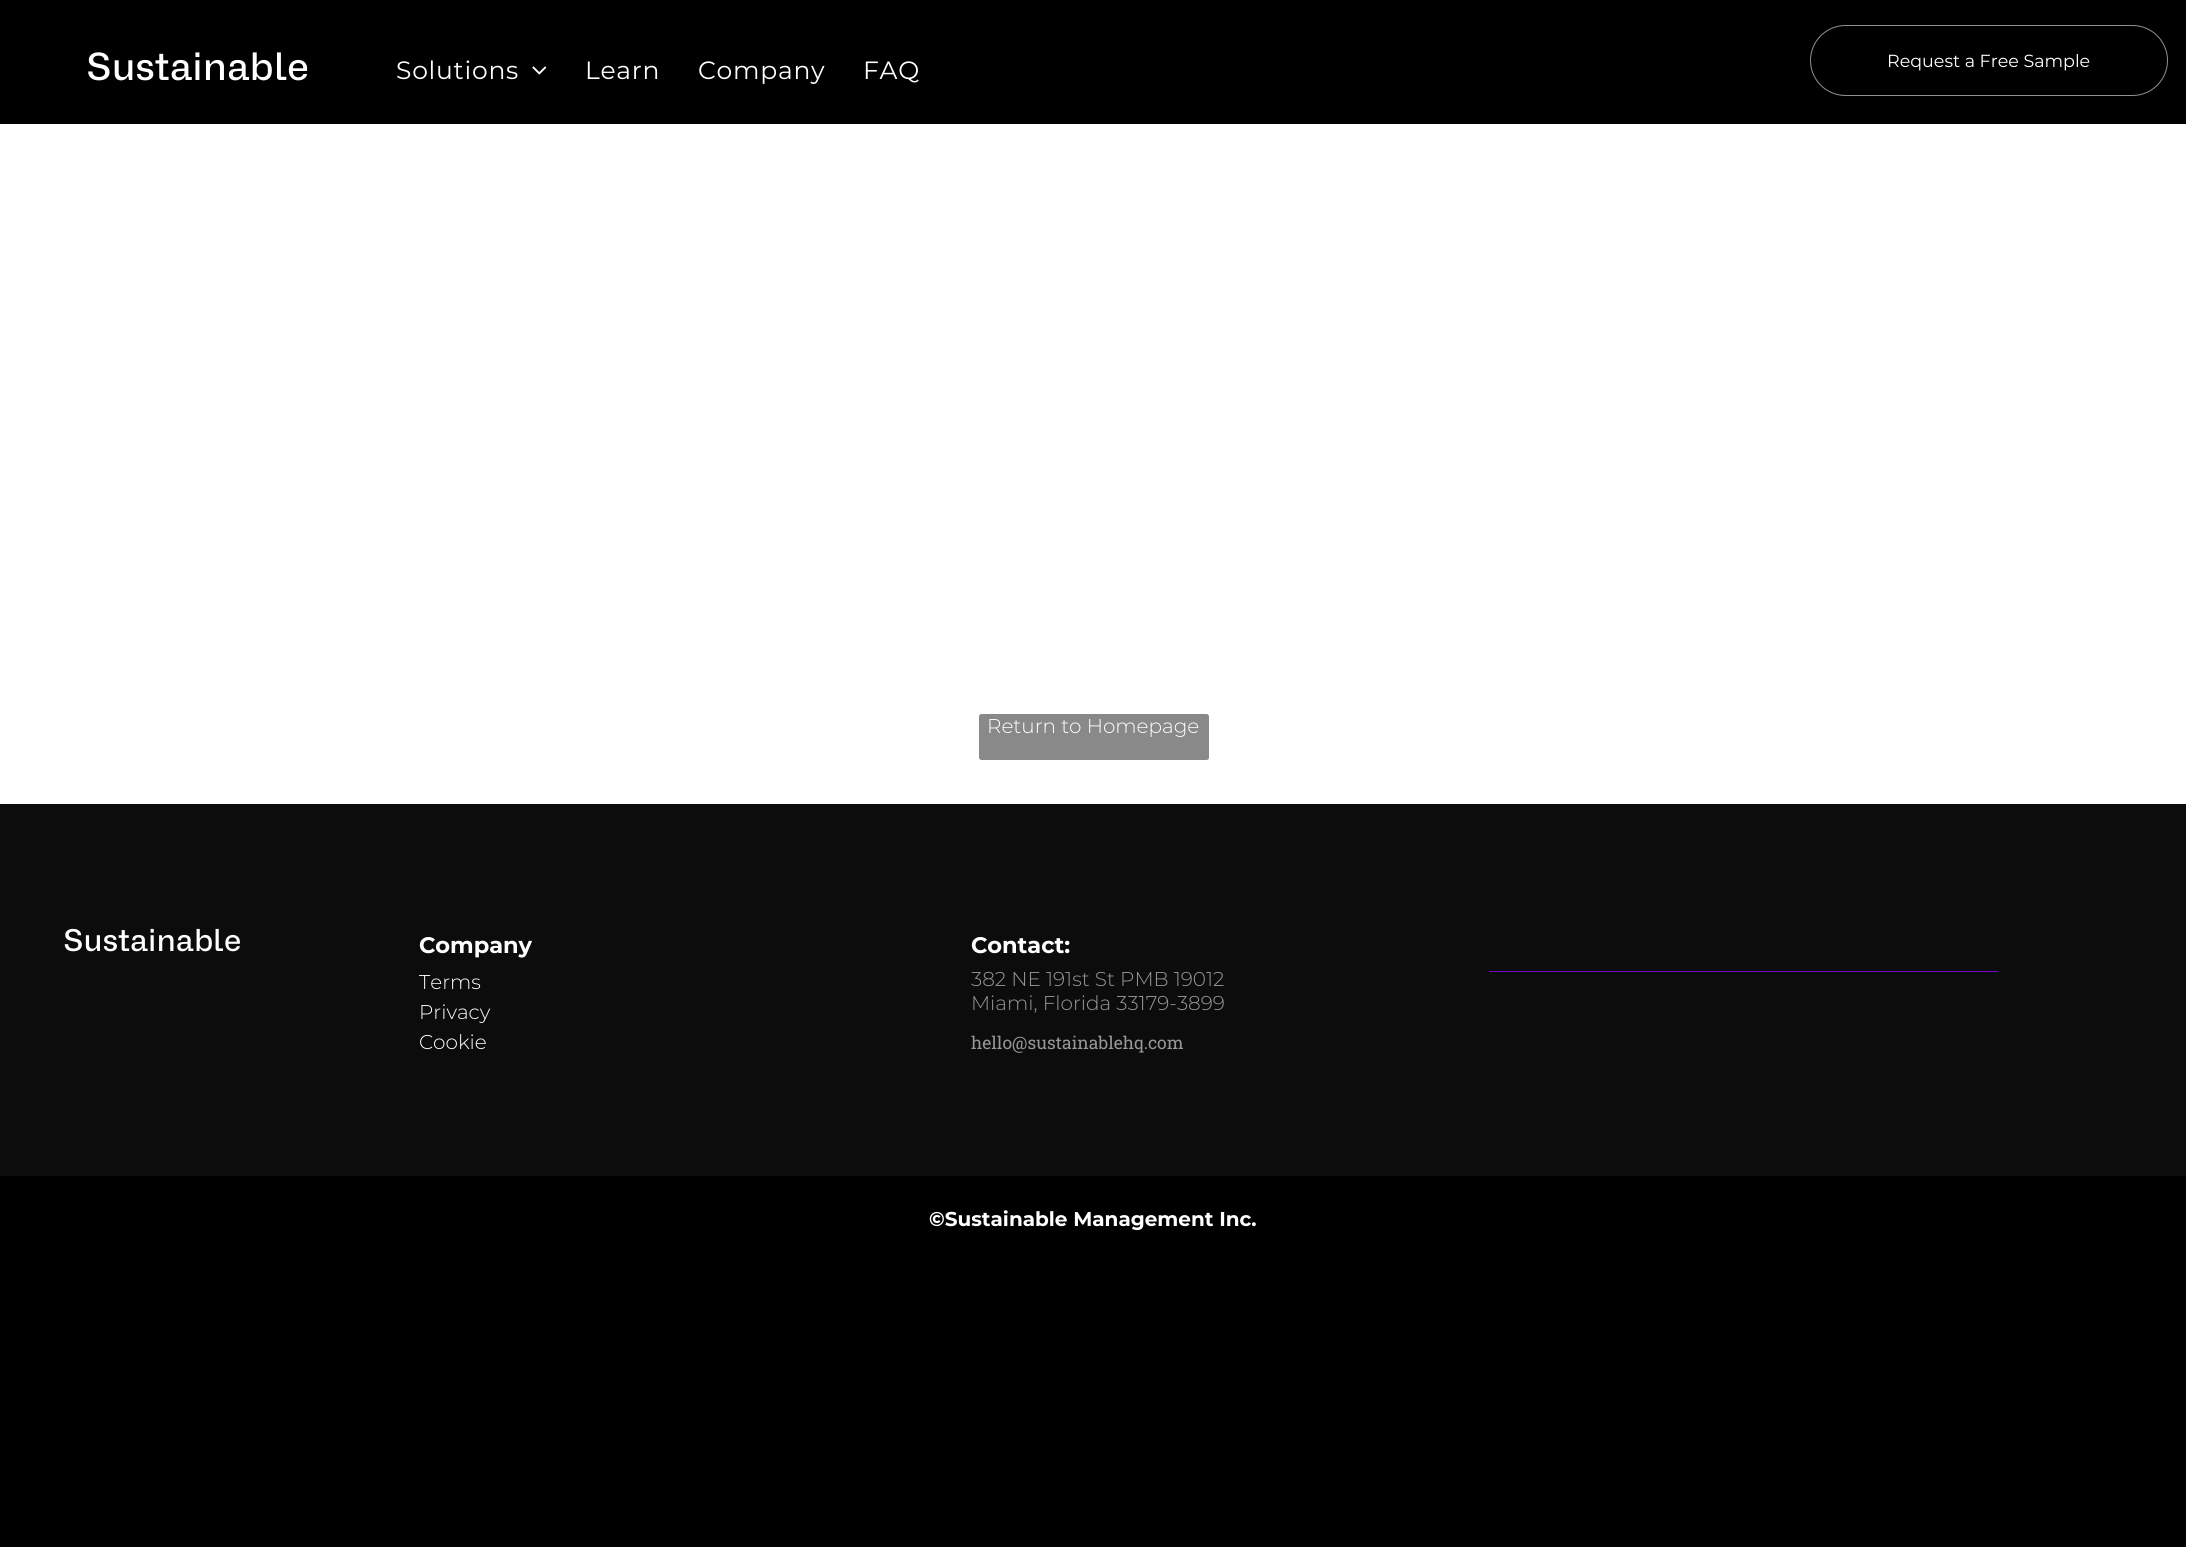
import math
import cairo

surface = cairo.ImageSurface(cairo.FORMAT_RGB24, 2186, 1547)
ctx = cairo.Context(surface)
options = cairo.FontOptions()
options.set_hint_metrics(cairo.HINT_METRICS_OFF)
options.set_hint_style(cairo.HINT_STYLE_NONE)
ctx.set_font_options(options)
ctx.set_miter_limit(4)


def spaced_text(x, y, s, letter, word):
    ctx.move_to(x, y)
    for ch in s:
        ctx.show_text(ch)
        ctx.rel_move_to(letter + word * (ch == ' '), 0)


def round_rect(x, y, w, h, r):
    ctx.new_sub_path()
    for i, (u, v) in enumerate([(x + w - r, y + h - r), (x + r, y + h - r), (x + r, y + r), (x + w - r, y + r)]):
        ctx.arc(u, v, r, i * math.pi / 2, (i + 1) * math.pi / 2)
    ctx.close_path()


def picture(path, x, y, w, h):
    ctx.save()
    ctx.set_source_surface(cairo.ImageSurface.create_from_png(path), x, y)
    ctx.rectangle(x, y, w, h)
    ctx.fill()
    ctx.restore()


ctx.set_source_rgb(0, 0, 0)
ctx.paint()
ctx.select_font_face("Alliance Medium")
ctx.set_font_size(37.5)
ctx.set_source_rgb(1, 1, 1)
ctx.move_to(86, 80)
ctx.show_text("Sustainable")
ctx.select_font_face("Montserrat")
ctx.set_font_size(25)
spaced_text(396, 79, "Solutions", 0.75, 0)
picture("img1.png", 532, 66, 15, 9)
spaced_text(585, 79, "Learn", 0.75, 0)
spaced_text(698, 79, "Company", 0.75, 0)
spaced_text(863, 79, "FAQ", 0.75, 0)
round_rect(1810.5, 25.5, 357, 70, 35)
ctx.set_source_rgb(0.569, 0.569, 0.569)
ctx.set_line_width(1)
ctx.stroke()
ctx.set_font_size(17.5)
ctx.set_source_rgb(1, 1, 1)
ctx.move_to(1887, 67)
ctx.show_text("Request a Free Sample")
ctx.rectangle(0, 124, 2186, 680)
ctx.fill()
ctx.set_source_rgb(0.537, 0.537, 0.537)
round_rect(979, 714, 230, 46, 2.5)
ctx.fill()
ctx.select_font_face("Montserrat Light")
ctx.set_font_size(20)
ctx.set_source_rgb(1, 1, 1)
ctx.move_to(987, 733)
ctx.show_text("Return to Homepage")
ctx.set_source_rgb(0.047, 0.047, 0.047)
ctx.rectangle(0, 804, 2186, 372)
ctx.fill()
ctx.select_font_face("Alliance Medium")
ctx.set_font_size(30)
ctx.set_source_rgb(1, 1, 1)
ctx.move_to(63, 951)
ctx.show_text("Sustainable")
ctx.select_font_face("Montserrat", cairo.FONT_SLANT_NORMAL, cairo.FONT_WEIGHT_BOLD)
ctx.set_font_size(22.5)
ctx.move_to(419, 953)
ctx.show_text("Company")
ctx.select_font_face("Montserrat Light")
ctx.set_font_size(20)
ctx.move_to(419, 989)
ctx.show_text("Terms")
ctx.move_to(419, 1019)
ctx.show_text("Privacy")
ctx.move_to(419, 1049)
ctx.show_text("Cookie")
ctx.select_font_face("Montserrat", cairo.FONT_SLANT_NORMAL, cairo.FONT_WEIGHT_BOLD)
ctx.set_font_size(22.5)
ctx.move_to(971, 953)
ctx.show_text("Contact:")
ctx.select_font_face("Montserrat Light")
ctx.set_font_size(20)
ctx.set_source_rgb(0.592, 0.592, 0.592)
ctx.move_to(971, 986)
ctx.show_text("382 NE 191st St PMB 19012")
ctx.move_to(971, 1010)
ctx.show_text("Miami, Florida 33179-3899")
ctx.select_font_face("Roboto Slab")
ctx.set_font_size(17.5)
ctx.move_to(971, 1049)
ctx.show_text("hello@sustainablehq.com")
ctx.set_source_rgb(0.459, 0.008, 0.808)
ctx.rectangle(1489, 971, 509, 1)
ctx.fill()
ctx.select_font_face("Montserrat", cairo.FONT_SLANT_NORMAL, cairo.FONT_WEIGHT_BOLD)
ctx.set_font_size(20)
ctx.set_source_rgb(1, 1, 1)
ctx.move_to(929, 1226)
ctx.show_text("©Sustainable Management Inc.")
surface.write_to_png("page.png")
